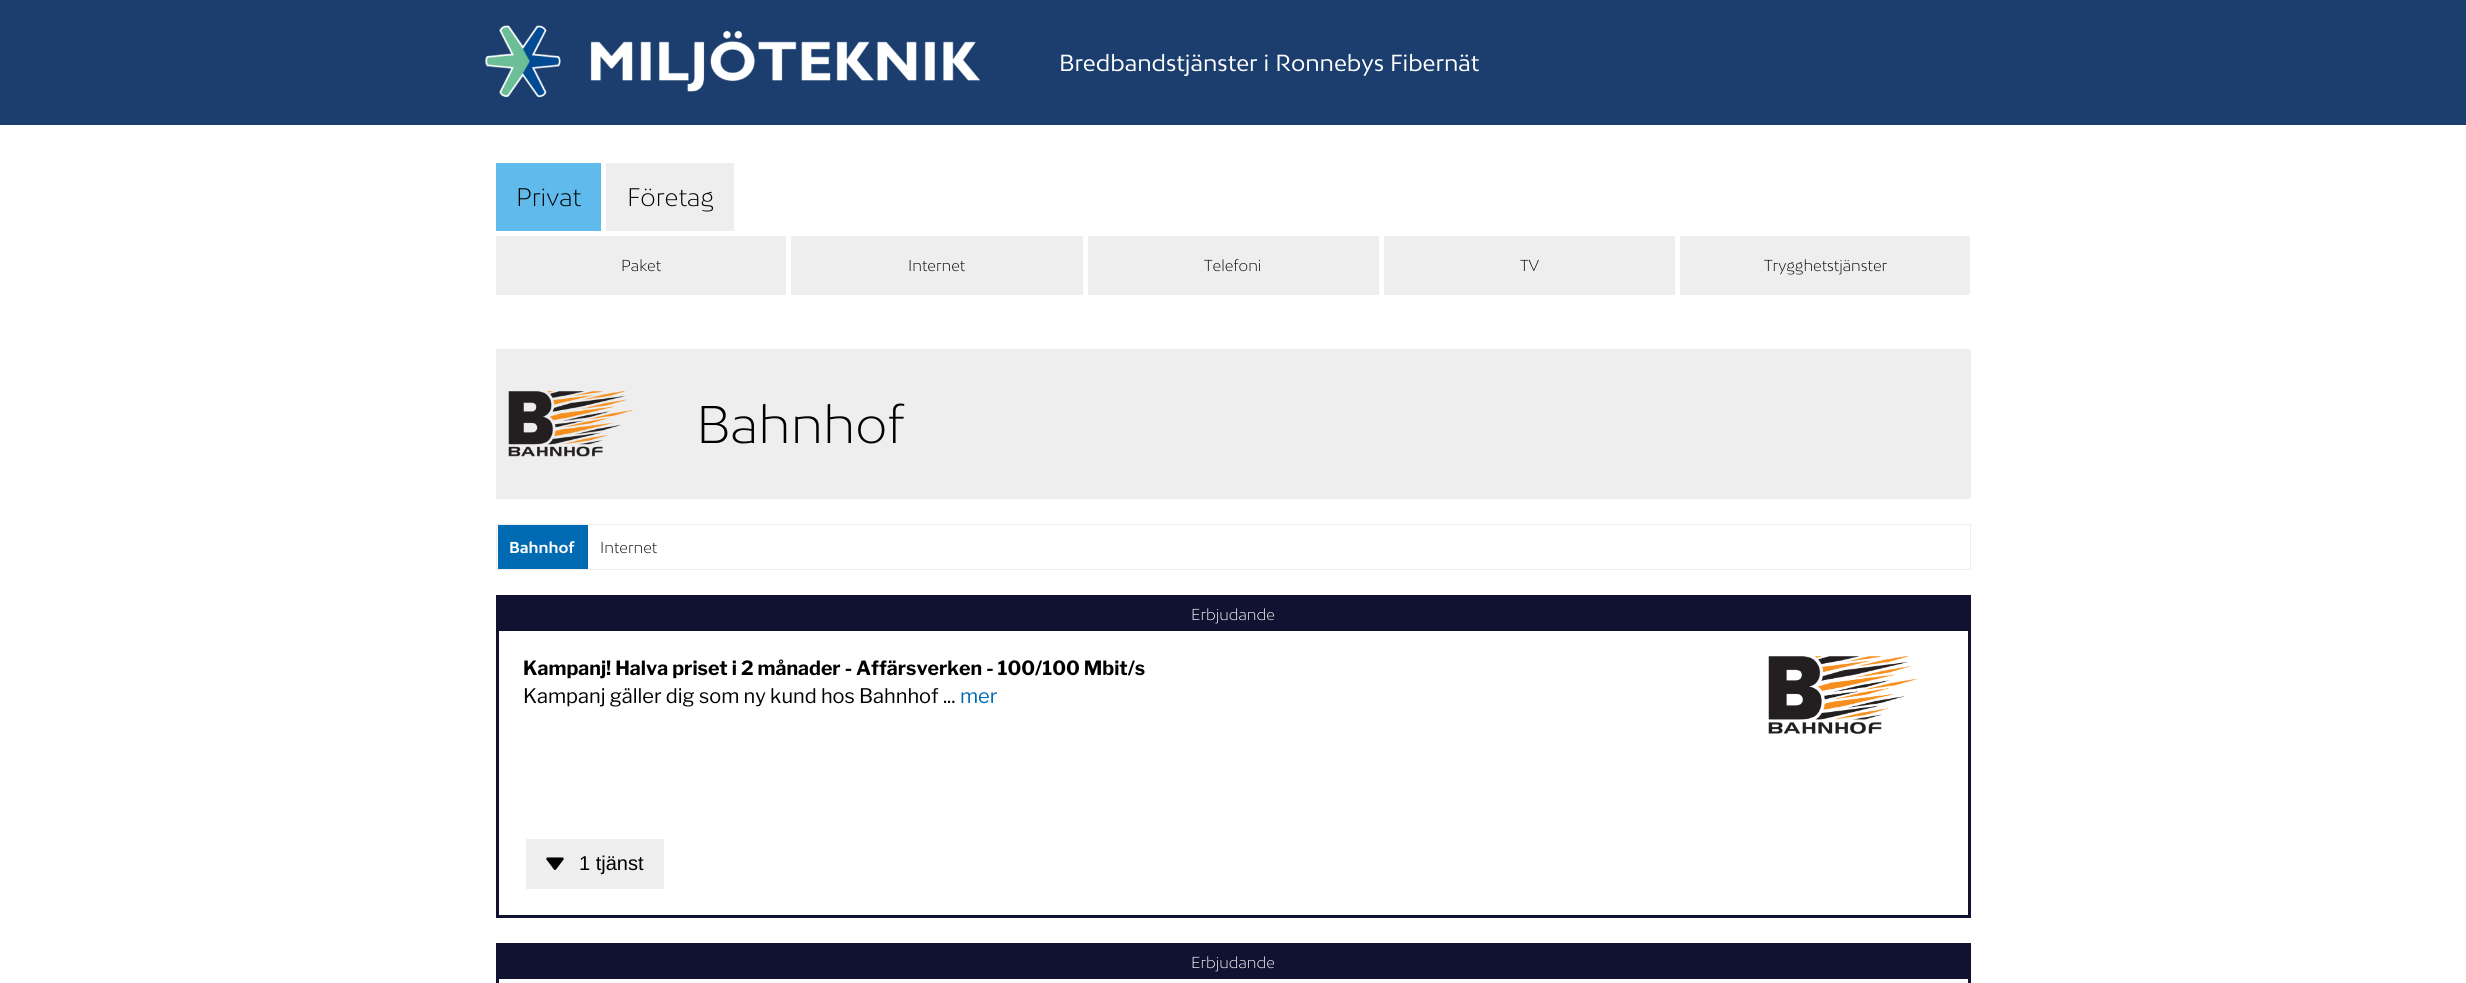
import math
import cairo

surface = cairo.ImageSurface(cairo.FORMAT_RGB24, 2466, 983)
ctx = cairo.Context(surface)
options = cairo.FontOptions()
options.set_hint_metrics(cairo.HINT_METRICS_OFF)
options.set_hint_style(cairo.HINT_STYLE_NONE)
ctx.set_font_options(options)
ctx.set_miter_limit(4)


def picture(path, x, y, w, h):
    ctx.save()
    ctx.set_source_surface(cairo.ImageSurface.create_from_png(path), x, y)
    ctx.rectangle(x, y, w, h)
    ctx.fill()
    ctx.restore()


ctx.set_source_rgb(1, 1, 1)
ctx.paint()
ctx.set_source_rgb(0.106, 0.243, 0.435)
ctx.rectangle(0, 0, 2466, 125)
ctx.fill()
picture("img1.png", 485, 25, 495, 73)
ctx.select_font_face("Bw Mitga")
ctx.set_font_size(22)
ctx.set_source_rgb(1, 1, 1)
ctx.move_to(1059, 71)
ctx.show_text("Bredbandstjänster i Ronnebys Fibernät")
ctx.set_source_rgb(0.376, 0.729, 0.918)
ctx.rectangle(496, 163, 105, 68)
ctx.fill()
ctx.select_font_face("Bw Mitga Light")
ctx.set_font_size(24)
ctx.set_source_rgb(0, 0, 0)
ctx.move_to(516, 206)
ctx.show_text("Privat")
ctx.set_source_rgb(0.933, 0.933, 0.933)
ctx.rectangle(606, 163, 128, 68)
ctx.fill()
ctx.set_source_rgb(0, 0, 0)
ctx.move_to(627, 206)
ctx.show_text("Företag")
ctx.set_source_rgb(0.933, 0.933, 0.933)
ctx.rectangle(496, 236, 290, 59)
ctx.fill()
ctx.set_font_size(15)
ctx.set_source_rgb(0, 0, 0)
ctx.move_to(621, 271)
ctx.show_text("Paket")
ctx.set_source_rgb(0.933, 0.933, 0.933)
ctx.rectangle(791, 236, 292, 59)
ctx.fill()
ctx.set_source_rgb(0, 0, 0)
ctx.move_to(908, 271)
ctx.show_text("Internet")
ctx.set_source_rgb(0.933, 0.933, 0.933)
ctx.rectangle(1088, 236, 291, 59)
ctx.fill()
ctx.set_source_rgb(0, 0, 0)
ctx.move_to(1204, 271)
ctx.show_text("Telefoni")
ctx.set_source_rgb(0.933, 0.933, 0.933)
ctx.rectangle(1384, 236, 291, 59)
ctx.fill()
ctx.set_source_rgb(0, 0, 0)
ctx.move_to(1520, 271)
ctx.show_text("TV")
ctx.set_source_rgb(0.933, 0.933, 0.933)
ctx.rectangle(1680, 236, 290, 59)
ctx.fill()
ctx.set_source_rgb(0, 0, 0)
ctx.move_to(1764, 271)
ctx.show_text("Trygghetstjänster")
ctx.set_source_rgb(0.933, 0.933, 0.933)
ctx.rectangle(496, 349, 1475, 150)
ctx.fill()
picture("img2.png", 508, 391, 126, 66)
ctx.set_font_size(50)
ctx.set_source_rgb(0, 0, 0)
ctx.move_to(696, 443)
ctx.show_text("Bahnhof")
ctx.rectangle(496.5, 524.5, 1474, 45)
ctx.set_source_rgb(0.933, 0.933, 0.933)
ctx.set_line_width(1)
ctx.stroke()
ctx.set_source_rgb(0, 0.416, 0.702)
ctx.rectangle(498, 525, 90, 44)
ctx.fill()
ctx.select_font_face("Bw Mitga", cairo.FONT_SLANT_NORMAL, cairo.FONT_WEIGHT_BOLD)
ctx.set_font_size(15)
ctx.set_source_rgb(1, 1, 1)
ctx.move_to(509, 553)
ctx.show_text("Bahnhof")
ctx.select_font_face("Bw Mitga Light")
ctx.set_source_rgb(0, 0, 0)
ctx.move_to(600, 553)
ctx.show_text("Internet")
ctx.rectangle(497.5, 596.5, 1472, 320)
ctx.set_source_rgb(0.067, 0.071, 0.192)
ctx.set_line_width(3)
ctx.stroke()
ctx.rectangle(499, 598, 1469, 33)
ctx.fill()
ctx.set_source_rgb(1, 1, 1)
ctx.move_to(1191, 620)
ctx.show_text("Erbjudande")
ctx.select_font_face("Libre Franklin", cairo.FONT_SLANT_NORMAL, cairo.FONT_WEIGHT_BOLD)
ctx.set_font_size(19.5)
ctx.set_source_rgb(0, 0, 0)
ctx.move_to(523, 675)
ctx.show_text("Kampanj! Halva priset i 2 månader - Affärsverken - 100/100 Mbit/s")
picture("img3.png", 1768, 656, 151, 78)
ctx.select_font_face("Libre Franklin")
ctx.set_font_size(20)
ctx.move_to(523, 703)
ctx.show_text("Kampanj gäller dig som ny kund hos Bahnhof ...")
ctx.set_source_rgb(0, 0.416, 0.702)
ctx.move_to(960, 703)
ctx.show_text("mer")
ctx.set_source_rgb(0.933, 0.933, 0.933)
ctx.rectangle(526, 839, 138, 50)
ctx.fill()
picture("img4.png", 546, 857, 18, 13)
ctx.select_font_face("Liberation Sans")
ctx.set_source_rgb(0, 0, 0)
ctx.move_to(579, 870)
ctx.show_text("1 tjänst")
ctx.rectangle(497.5, 944.5, 1472, 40)
ctx.set_source_rgb(0.067, 0.071, 0.192)
ctx.stroke()
ctx.rectangle(499, 946, 1469, 33)
ctx.fill()
ctx.select_font_face("Bw Mitga Light")
ctx.set_font_size(15)
ctx.set_source_rgb(1, 1, 1)
ctx.move_to(1191, 968)
ctx.show_text("Erbjudande")
surface.write_to_png("page.png")
